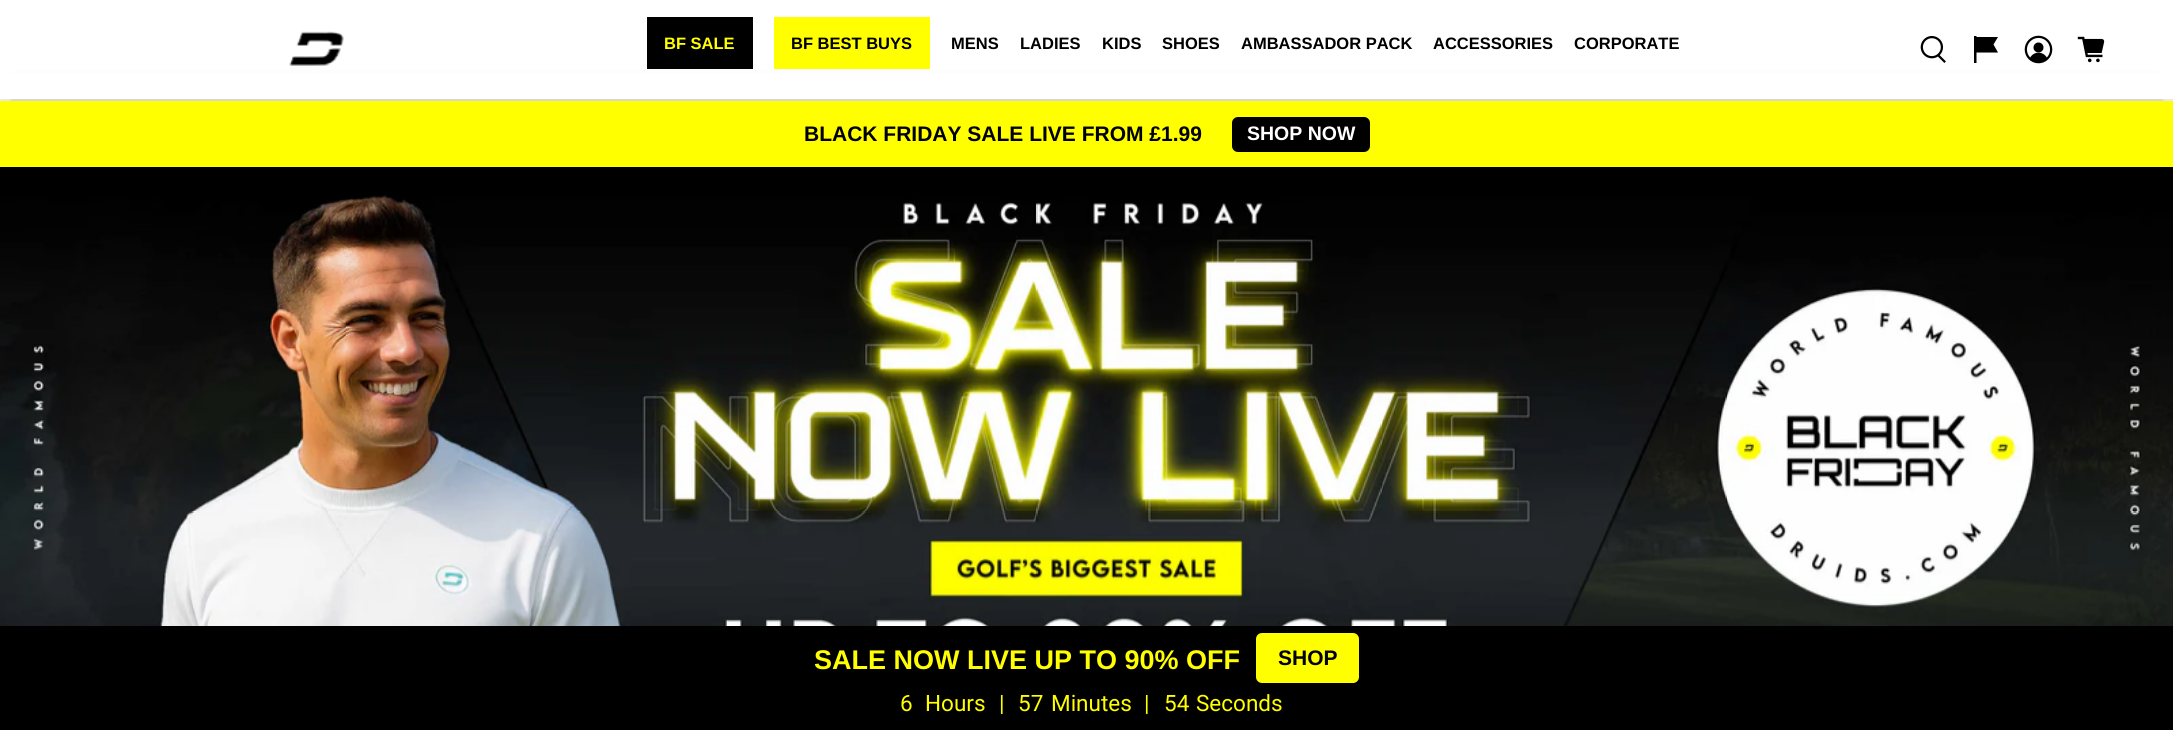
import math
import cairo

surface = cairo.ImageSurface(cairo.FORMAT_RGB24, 2173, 730)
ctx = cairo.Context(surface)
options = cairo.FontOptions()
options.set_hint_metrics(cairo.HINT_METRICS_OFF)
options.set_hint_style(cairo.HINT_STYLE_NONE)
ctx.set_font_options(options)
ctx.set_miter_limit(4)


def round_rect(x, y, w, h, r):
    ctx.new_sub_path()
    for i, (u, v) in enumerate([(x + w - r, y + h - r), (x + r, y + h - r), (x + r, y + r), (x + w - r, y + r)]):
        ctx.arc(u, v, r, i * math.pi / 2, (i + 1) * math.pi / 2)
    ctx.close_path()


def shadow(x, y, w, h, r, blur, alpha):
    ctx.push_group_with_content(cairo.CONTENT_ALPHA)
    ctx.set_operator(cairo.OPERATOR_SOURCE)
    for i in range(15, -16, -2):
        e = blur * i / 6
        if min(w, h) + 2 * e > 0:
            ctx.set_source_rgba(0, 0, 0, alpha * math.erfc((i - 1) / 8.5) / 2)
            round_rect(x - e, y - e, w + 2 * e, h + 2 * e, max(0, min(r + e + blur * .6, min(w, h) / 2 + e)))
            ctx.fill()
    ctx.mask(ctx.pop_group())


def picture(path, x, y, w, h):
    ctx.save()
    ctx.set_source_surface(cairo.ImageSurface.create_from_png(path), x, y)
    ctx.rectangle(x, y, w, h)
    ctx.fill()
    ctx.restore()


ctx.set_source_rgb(1, 1, 1)
ctx.paint()
picture("img5.png", 0, 167, 2173, 459)
ctx.set_source_rgb(0, 0, 0)
shadow(17, 117, 2140, 33, 0, 19, 1)
ctx.set_source_rgb(1, 1, 1)
ctx.rectangle(0, 73, 2173, 26)
ctx.fill()
picture("img1.png", 289, 31, 55, 35)
picture("img2.png", 1920, 36, 26, 27)
ctx.set_source_rgb(0, 0, 0)
ctx.new_path()
ctx.move_to(1993.5, 44.5)
ctx.line_to(1998, 37)
ctx.line_to(1976.5, 37)
ctx.line_to(1976.5, 36)
ctx.line_to(1974, 36)
ctx.line_to(1974, 63)
ctx.line_to(1976.5, 63)
ctx.line_to(1976.5, 52.5)
ctx.line_to(1998, 52.5)
ctx.close_path()
ctx.fill()
picture("img3.png", 2024, 35, 29, 29)
picture("img4.png", 2077, 36, 28, 27)
ctx.rectangle(647, 17, 106, 52)
ctx.fill()
ctx.select_font_face("Liberation Sans", cairo.FONT_SLANT_NORMAL, cairo.FONT_WEIGHT_BOLD)
ctx.set_font_size(16.5)
ctx.set_source_rgb(1, 1, 0)
ctx.move_to(664, 49)
ctx.show_text("BF SALE")
ctx.rectangle(774, 17, 156, 52)
ctx.fill()
ctx.set_source_rgb(0, 0, 0)
ctx.move_to(791, 49)
ctx.show_text("BF BEST BUYS")
ctx.move_to(951, 49)
ctx.show_text("MENS")
ctx.move_to(1020, 49)
ctx.show_text("LADIES")
ctx.move_to(1102, 49)
ctx.show_text("KIDS")
ctx.move_to(1162, 49)
ctx.show_text("SHOES")
ctx.move_to(1241, 49)
ctx.show_text("AMBASSADOR PACK")
ctx.move_to(1433, 49)
ctx.show_text("ACCESSORIES")
ctx.move_to(1574, 49)
ctx.show_text("CORPORATE")
ctx.set_source_rgb(1, 1, 0)
ctx.rectangle(0, 101, 2173, 66)
ctx.fill()
ctx.set_font_size(21)
ctx.set_source_rgb(0, 0, 0)
ctx.move_to(804, 141)
ctx.show_text("BLACK FRIDAY SALE LIVE FROM £1.99")
round_rect(1232, 117, 138, 35, 6)
ctx.fill()
ctx.set_font_size(19.5)
ctx.set_source_rgb(1, 1, 1)
ctx.move_to(1247, 140)
ctx.show_text("SHOP NOW")
ctx.set_source_rgb(0, 0, 0)
ctx.rectangle(0, 626, 2173, 104)
ctx.fill()
ctx.set_font_size(27)
ctx.set_source_rgb(1, 1, 0)
ctx.move_to(814, 669)
ctx.show_text("SALE NOW LIVE UP TO 90% OFF")
round_rect(1256, 633, 103, 50, 6)
ctx.fill()
ctx.set_font_size(21)
ctx.set_source_rgb(0, 0, 0)
ctx.move_to(1278, 665)
ctx.show_text("SHOP")
ctx.select_font_face("Roboto")
ctx.set_font_size(22.5)
ctx.set_source_rgb(1, 1, 0)
ctx.move_to(900, 711)
ctx.show_text("6")
ctx.move_to(925, 711)
ctx.show_text("Hours")
ctx.move_to(999, 711)
ctx.show_text("|")
ctx.move_to(1018, 711)
ctx.show_text("57")
ctx.move_to(1051, 711)
ctx.show_text("Minutes")
ctx.move_to(1144, 711)
ctx.show_text("|")
ctx.move_to(1164, 711)
ctx.show_text("54")
ctx.move_to(1196, 711)
ctx.show_text("Seconds")
surface.write_to_png("page.png")
